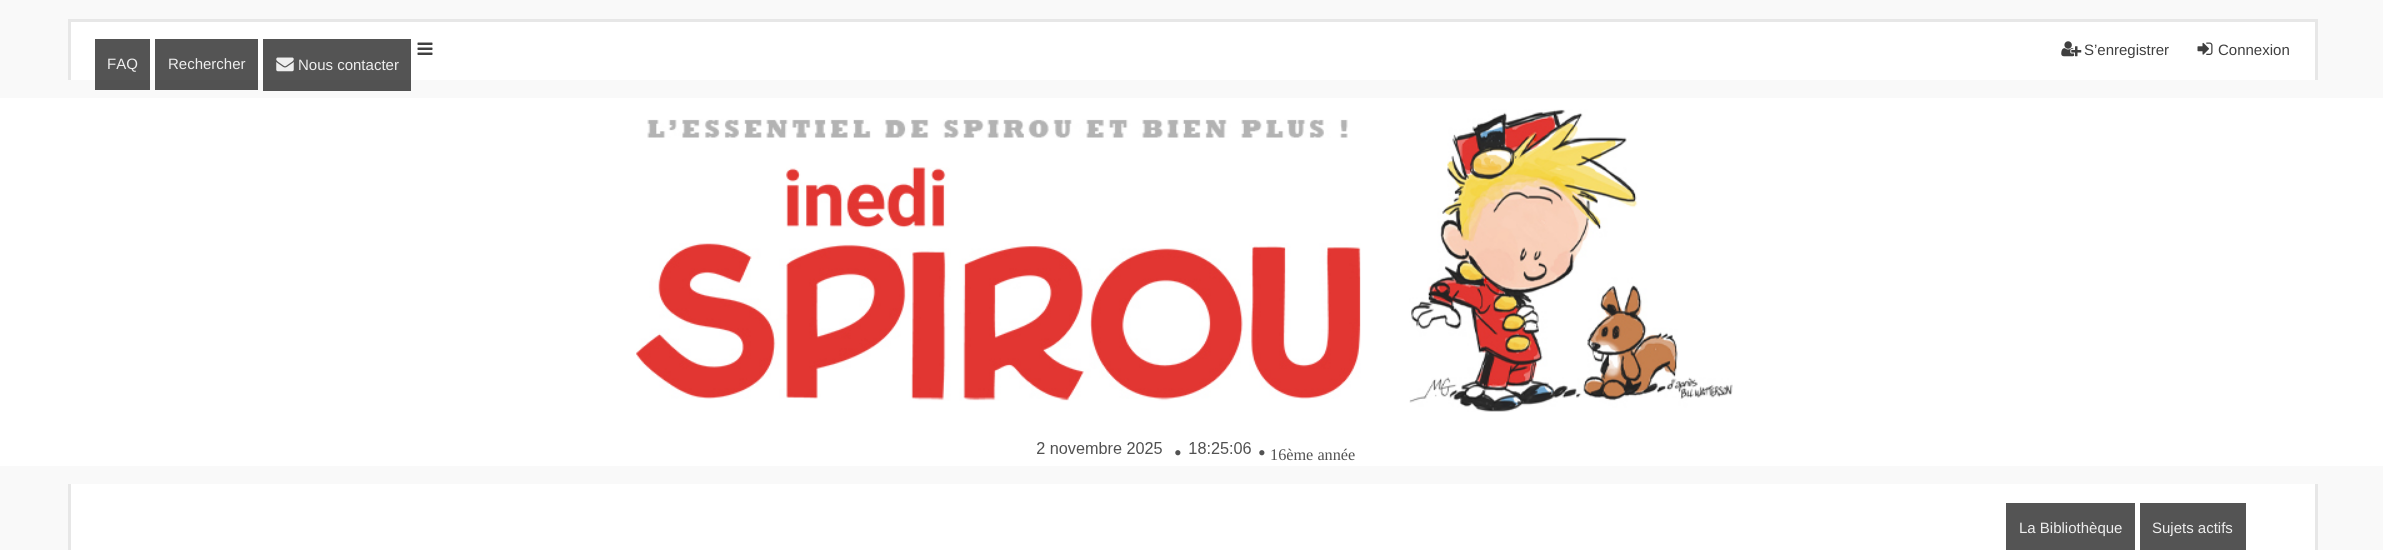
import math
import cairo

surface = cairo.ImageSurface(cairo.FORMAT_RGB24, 2383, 550)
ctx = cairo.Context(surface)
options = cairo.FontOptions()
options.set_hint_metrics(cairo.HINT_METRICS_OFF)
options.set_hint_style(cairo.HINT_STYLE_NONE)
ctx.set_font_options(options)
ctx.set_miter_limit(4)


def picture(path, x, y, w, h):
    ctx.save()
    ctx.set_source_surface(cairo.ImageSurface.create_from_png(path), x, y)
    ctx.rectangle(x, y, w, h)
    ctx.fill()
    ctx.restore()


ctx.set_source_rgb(0.976, 0.976, 0.976)
ctx.paint()
ctx.set_source_rgb(0.322, 0.322, 0.322)
ctx.rectangle(263, 80, 148, 11)
ctx.fill()
ctx.rectangle(155, 80, 103, 10)
ctx.fill()
ctx.rectangle(95, 80, 55, 10)
ctx.fill()
ctx.set_source_rgb(1, 1, 1)
ctx.rectangle(71, 22, 2244, 58)
ctx.fill()
ctx.set_source_rgb(0.329, 0.329, 0.329)
ctx.rectangle(263, 39, 148, 41)
ctx.fill()
ctx.rectangle(155, 39, 103, 41)
ctx.fill()
ctx.rectangle(95, 39, 55, 41)
ctx.fill()
ctx.set_source_rgb(0.906, 0.906, 0.906)
ctx.rectangle(68, 19, 2250, 3)
ctx.fill()
ctx.rectangle(2315, 19, 3, 61)
ctx.fill()
ctx.rectangle(68, 19, 3, 61)
ctx.fill()
picture("img1.png", 417, 42, 16, 13)
picture("img2.png", 2061, 41, 21, 16)
ctx.select_font_face("Liberation Sans")
ctx.set_font_size(15)
ctx.set_source_rgb(0.247, 0.247, 0.247)
ctx.move_to(2084, 55)
ctx.show_text("S’enregistrer")
picture("img3.png", 2197, 42, 16, 13)
ctx.move_to(2218, 55)
ctx.show_text("Connexion")
ctx.set_source_rgb(0.933, 0.933, 0.933)
ctx.move_to(107, 69)
ctx.show_text("FAQ")
ctx.move_to(168, 69)
ctx.show_text("Rechercher")
picture("img4.png", 276, 57, 18, 15)
ctx.move_to(298, 70)
ctx.show_text("Nous contacter")
ctx.set_source_rgb(1, 1, 1)
ctx.rectangle(0, 98, 2383, 368)
ctx.fill()
picture("img5.png", 647, 119, 701, 19)
picture("img6.png", 1409, 109, 324, 303)
picture("img7.png", 786, 167, 164, 61)
picture("img8.png", 636, 243, 725, 158)
picture("img9.png", 1037, 442, 125, 12)
ctx.select_font_face("Liberation Serif")
ctx.set_font_size(22)
ctx.set_source_rgb(0.322, 0.322, 0.322)
ctx.move_to(1174, 460)
ctx.show_text("•")
picture("img10.png", 1189, 442, 62, 12)
ctx.move_to(1258, 460)
ctx.show_text("•")
ctx.set_font_size(16.25)
ctx.move_to(1270, 460)
ctx.show_text("16ème année")
ctx.set_source_rgb(1, 1, 1)
ctx.rectangle(71, 484, 2244, 66)
ctx.fill()
ctx.set_source_rgb(0.906, 0.906, 0.906)
ctx.rectangle(2315, 484, 3, 66)
ctx.fill()
ctx.rectangle(68, 484, 3, 66)
ctx.fill()
ctx.set_source_rgb(0.329, 0.329, 0.329)
ctx.rectangle(2006, 503, 129, 47)
ctx.fill()
ctx.select_font_face("Liberation Sans")
ctx.set_font_size(15)
ctx.set_source_rgb(0.933, 0.933, 0.933)
ctx.move_to(2019, 533)
ctx.show_text("La Bibliothèque")
ctx.set_source_rgb(0.329, 0.329, 0.329)
ctx.rectangle(2140, 503, 106, 47)
ctx.fill()
ctx.set_source_rgb(0.933, 0.933, 0.933)
ctx.move_to(2152, 533)
ctx.show_text("Sujets actifs")
surface.write_to_png("page.png")
